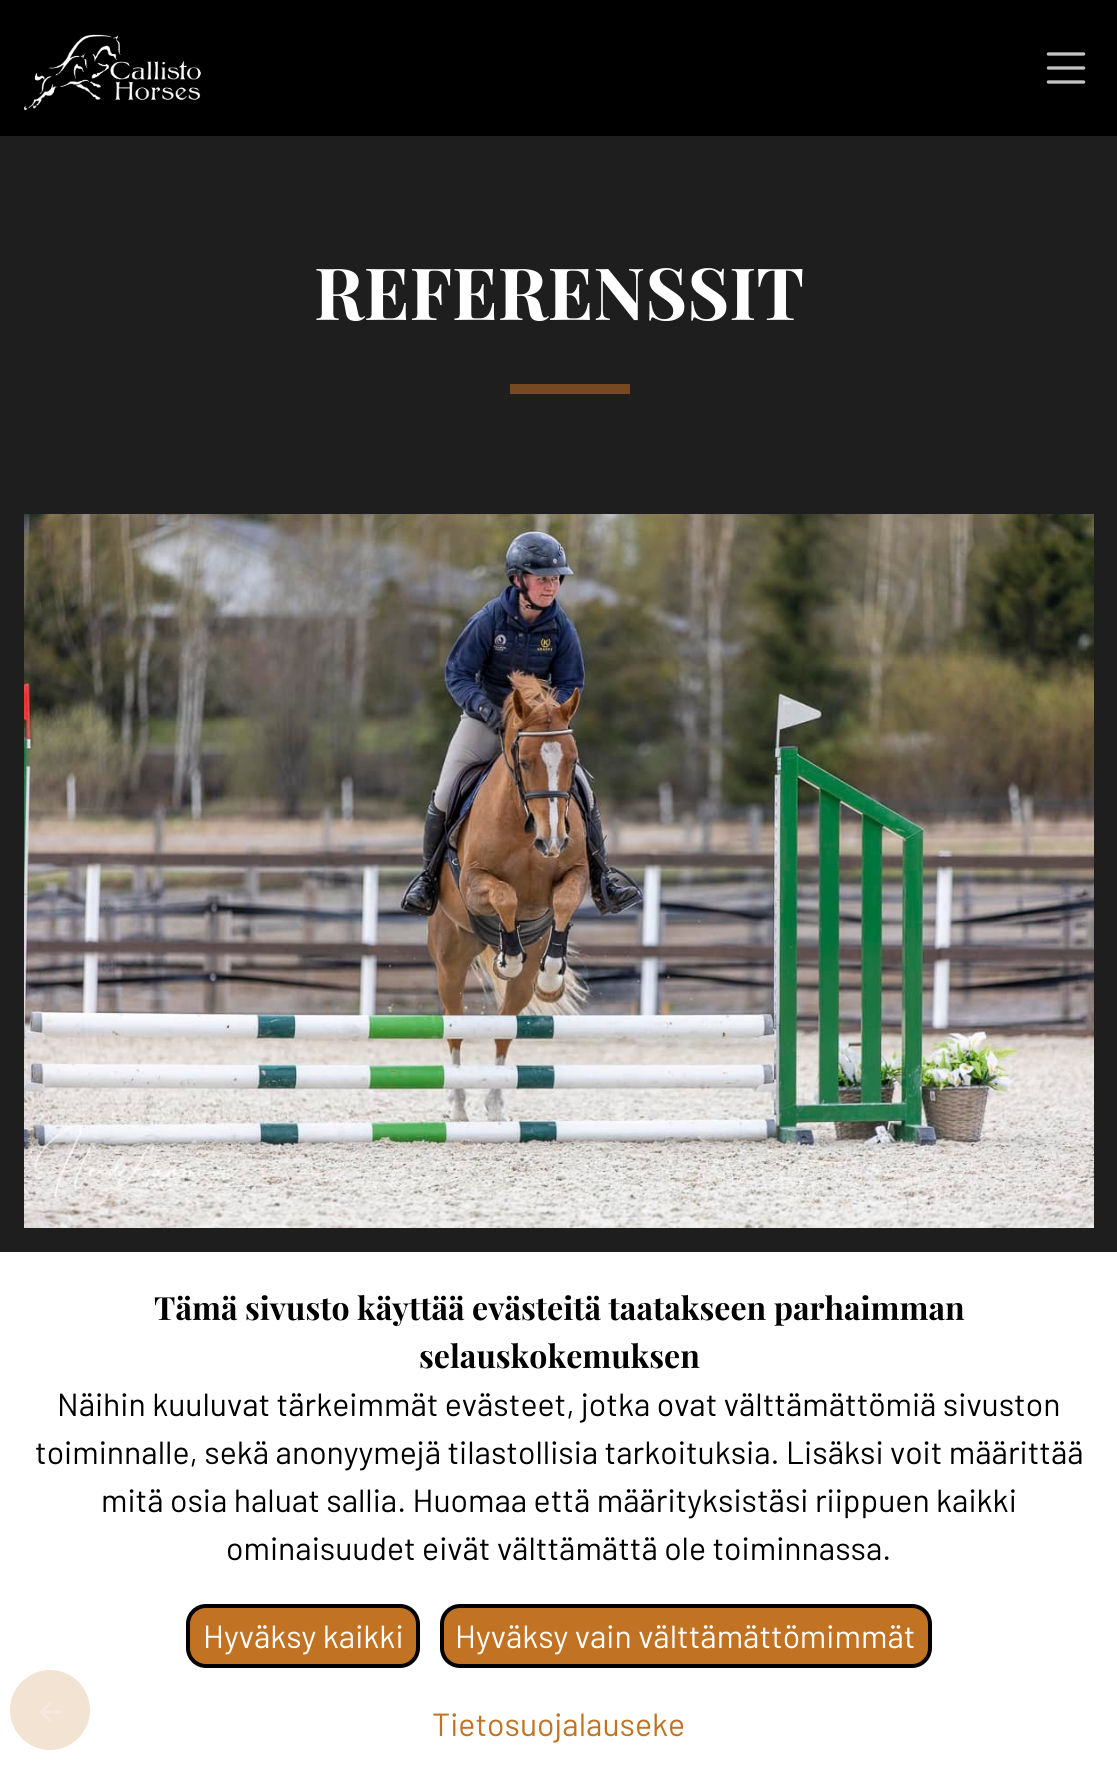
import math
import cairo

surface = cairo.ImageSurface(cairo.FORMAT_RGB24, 1117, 1779)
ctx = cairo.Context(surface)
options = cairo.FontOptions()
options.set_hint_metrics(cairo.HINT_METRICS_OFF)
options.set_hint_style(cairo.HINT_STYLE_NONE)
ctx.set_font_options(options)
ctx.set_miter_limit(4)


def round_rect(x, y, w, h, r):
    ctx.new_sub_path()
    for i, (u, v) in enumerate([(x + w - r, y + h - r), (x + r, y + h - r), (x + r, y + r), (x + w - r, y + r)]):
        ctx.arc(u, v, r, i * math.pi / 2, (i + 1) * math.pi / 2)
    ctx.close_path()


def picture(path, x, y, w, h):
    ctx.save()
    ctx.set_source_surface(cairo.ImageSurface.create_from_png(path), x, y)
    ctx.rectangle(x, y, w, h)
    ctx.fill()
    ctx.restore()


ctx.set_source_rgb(0.118, 0.118, 0.118)
ctx.paint()
ctx.set_source_rgb(0, 0, 0)
ctx.rectangle(0, 0, 1117, 136)
ctx.fill()
picture("img1.png", 24, 34, 177, 77)
picture("img2.png", 1046, 52, 40, 32)
ctx.select_font_face("Playfair Display", cairo.FONT_SLANT_NORMAL, cairo.FONT_WEIGHT_BOLD)
ctx.set_font_size(72)
ctx.set_source_rgb(1, 1, 1)
ctx.move_to(314, 320)
ctx.show_text("REFERENSSIT")
ctx.set_source_rgb(0.467, 0.286, 0.133)
ctx.rectangle(510, 384, 120, 10)
ctx.fill()
picture("img3.png", 24, 514, 1070, 714)
ctx.set_source_rgb(1, 1, 1)
ctx.rectangle(0, 1252, 1117, 527)
ctx.fill()
ctx.set_font_size(32)
ctx.set_source_rgb(0, 0, 0)
ctx.move_to(154, 1320)
ctx.show_text("Tämä sivusto käyttää evästeitä taatakseen parhaimman")
ctx.move_to(419, 1368)
ctx.show_text("selauskokemuksen")
ctx.select_font_face("Barlow")
ctx.move_to(57, 1416)
ctx.show_text("Näihin kuuluvat tärkeimmät evästeet, jotka ovat välttämättömiä sivuston")
ctx.move_to(35, 1464)
ctx.show_text("toiminnalle, sekä anonyymejä tilastollisia tarkoituksia. Lisäksi voit määrittää")
ctx.move_to(101, 1512)
ctx.show_text("mitä osia haluat sallia. Huomaa että määrityksistäsi riippuen kaikki")
ctx.move_to(226, 1560)
ctx.show_text("ominaisuudet eivät välttämättä ole toiminnassa.")
ctx.set_source_rgb(0.757, 0.451, 0.137)
round_rect(188, 1606, 230, 60, 18)
ctx.fill_preserve()
ctx.set_source_rgb(0, 0, 0)
ctx.set_line_width(4)
ctx.stroke()
ctx.set_source_rgb(1, 1, 1)
ctx.move_to(203, 1648)
ctx.show_text("Hyväksy kaikki")
ctx.set_source_rgb(0.757, 0.451, 0.137)
round_rect(442, 1606, 488, 60, 18)
ctx.fill_preserve()
ctx.set_source_rgb(0, 0, 0)
ctx.stroke()
ctx.set_source_rgb(1, 1, 1)
ctx.move_to(455, 1648)
ctx.show_text("Hyväksy vain välttämättömimmät")
ctx.set_source_rgb(0.757, 0.451, 0.137)
ctx.move_to(432, 1736)
ctx.show_text("Tietosuojalauseke")
ctx.set_source_rgb(0.953, 0.89, 0.827)
ctx.new_path()
ctx.arc(50, 1710, 40, 0, 2 * math.pi)
ctx.fill()
picture("img4.png", 40, 1702, 21, 20)
surface.write_to_png("page.png")
